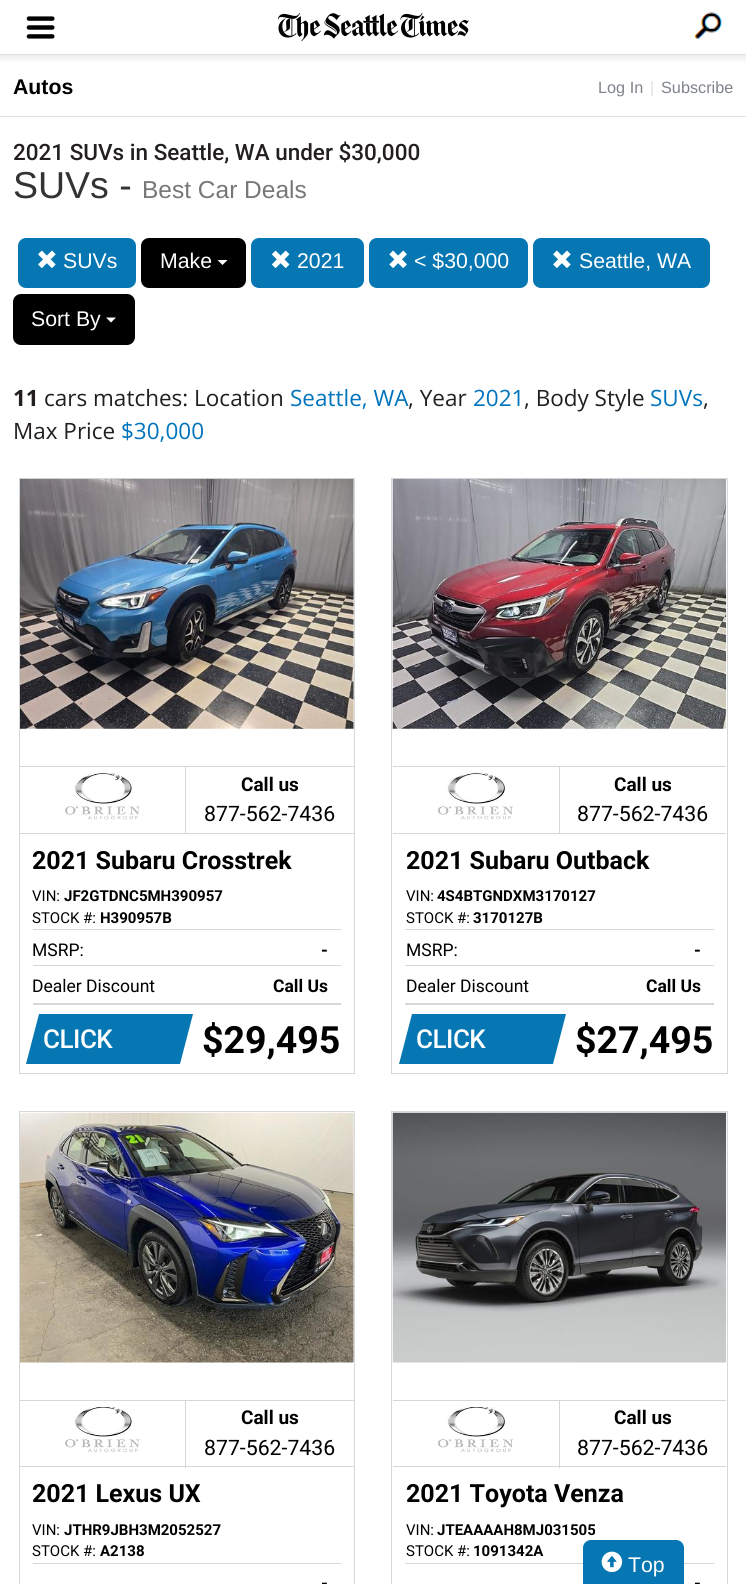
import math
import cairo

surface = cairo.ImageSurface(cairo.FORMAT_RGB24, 746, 1584)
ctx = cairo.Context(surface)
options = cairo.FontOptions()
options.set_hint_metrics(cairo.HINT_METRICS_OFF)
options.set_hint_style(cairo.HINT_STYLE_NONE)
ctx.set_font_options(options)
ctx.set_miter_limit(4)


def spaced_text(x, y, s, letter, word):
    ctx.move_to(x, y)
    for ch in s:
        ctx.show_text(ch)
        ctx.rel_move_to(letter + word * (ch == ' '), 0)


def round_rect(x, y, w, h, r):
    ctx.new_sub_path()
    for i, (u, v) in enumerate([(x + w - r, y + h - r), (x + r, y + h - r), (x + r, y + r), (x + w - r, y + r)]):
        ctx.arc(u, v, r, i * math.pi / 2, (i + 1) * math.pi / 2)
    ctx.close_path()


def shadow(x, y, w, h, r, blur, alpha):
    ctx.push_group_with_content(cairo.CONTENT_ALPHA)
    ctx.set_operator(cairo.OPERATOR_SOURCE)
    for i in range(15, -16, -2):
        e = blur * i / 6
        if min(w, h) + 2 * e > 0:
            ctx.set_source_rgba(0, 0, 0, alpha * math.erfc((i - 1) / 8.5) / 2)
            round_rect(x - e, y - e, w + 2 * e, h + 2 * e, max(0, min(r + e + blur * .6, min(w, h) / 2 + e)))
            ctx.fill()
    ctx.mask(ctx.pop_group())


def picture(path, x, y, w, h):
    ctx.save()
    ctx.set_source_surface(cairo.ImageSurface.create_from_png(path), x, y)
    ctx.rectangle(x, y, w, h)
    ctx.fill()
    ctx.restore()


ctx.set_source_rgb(1, 1, 1)
ctx.paint()
ctx.save()
ctx.rectangle(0, 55, 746, 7)
ctx.clip()
ctx.set_source_rgb(0, 0, 0)
shadow(0, 3, 746, 55, 0, 4.5, 0.1)
ctx.restore()
ctx.set_source_rgb(0.878, 0.878, 0.878)
ctx.rectangle(0, 54, 746, 1)
ctx.fill()
picture("img1.png", 26, 16, 29, 23)
picture("img2.png", 278, 13, 191, 28)
picture("img3.png", 695, 12, 27, 27)
ctx.rectangle(0, 116, 746, 1)
ctx.fill()
ctx.select_font_face("Liberation Sans", cairo.FONT_SLANT_NORMAL, cairo.FONT_WEIGHT_BOLD)
ctx.set_font_size(21.25)
ctx.set_source_rgb(0, 0, 0)
ctx.move_to(13, 94)
ctx.show_text("Autos")
ctx.select_font_face("Liberation Sans")
ctx.set_font_size(16.25)
ctx.set_source_rgb(0.494, 0.514, 0.545)
ctx.move_to(598, 93)
ctx.show_text("Log In")
ctx.set_source_rgb(0.878, 0.878, 0.878)
ctx.move_to(650, 93)
ctx.show_text("|")
ctx.set_source_rgb(0.494, 0.514, 0.545)
ctx.move_to(661, 93)
ctx.show_text("Subscribe")
ctx.select_font_face("Roboto Medium")
ctx.set_font_size(22.5)
ctx.set_source_rgb(0.137, 0.122, 0.125)
ctx.move_to(13, 160)
ctx.show_text("2021 SUVs in Seattle, WA under $30,000")
ctx.select_font_face("Liberation Sans")
ctx.set_font_size(37.5)
ctx.set_source_rgb(0.2, 0.2, 0.2)
ctx.move_to(13, 198)
ctx.show_text("SUVs -")
ctx.set_font_size(24.5)
ctx.set_source_rgb(0.467, 0.467, 0.467)
ctx.move_to(142, 198)
ctx.show_text("Best Car Deals")
ctx.set_source_rgb(0.027, 0.467, 0.702)
round_rect(18, 238, 118, 50, 8)
ctx.fill()
picture("img4.png", 38, 250, 18, 18)
ctx.set_font_size(21.25)
ctx.set_source_rgb(1, 1, 1)
ctx.move_to(63, 268)
ctx.show_text("SUVs")
ctx.set_source_rgb(0, 0, 0)
round_rect(141, 238, 105, 50, 8)
ctx.fill()
ctx.set_source_rgb(1, 1, 1)
ctx.move_to(160, 268)
ctx.show_text("Make")
ctx.new_path()
ctx.move_to(217.5, 260)
ctx.line_to(227.5, 260)
ctx.line_to(222.5, 265)
ctx.close_path()
ctx.fill()
ctx.set_source_rgb(0.027, 0.467, 0.702)
round_rect(251, 238, 113, 50, 8)
ctx.fill()
picture("img5.png", 272, 250, 18, 18)
ctx.set_source_rgb(1, 1, 1)
ctx.move_to(297, 268)
ctx.show_text("2021")
ctx.set_source_rgb(0.027, 0.467, 0.702)
round_rect(369, 238, 159, 50, 8)
ctx.fill()
picture("img6.png", 389, 250, 18, 18)
ctx.set_source_rgb(1, 1, 1)
ctx.move_to(414, 268)
ctx.show_text("< $30,000")
ctx.set_source_rgb(0.027, 0.467, 0.702)
round_rect(533, 238, 177, 50, 8)
ctx.fill()
picture("img4.png", 553, 250, 18, 18)
ctx.set_source_rgb(1, 1, 1)
ctx.move_to(579, 268)
ctx.show_text("Seattle, WA")
ctx.set_source_rgb(0, 0, 0)
round_rect(13, 294, 122, 51, 8)
ctx.fill()
ctx.set_source_rgb(1, 1, 1)
ctx.move_to(31, 326)
ctx.show_text("Sort By")
ctx.new_path()
ctx.move_to(106, 317.5)
ctx.line_to(116, 317.5)
ctx.line_to(111, 322.5)
ctx.close_path()
ctx.fill()
ctx.select_font_face("Open Sans", cairo.FONT_SLANT_NORMAL, cairo.FONT_WEIGHT_BOLD)
ctx.set_font_size(22.5)
ctx.set_source_rgb(0.137, 0.122, 0.125)
ctx.move_to(13, 406)
ctx.show_text("11")
ctx.select_font_face("Open Sans")
ctx.move_to(44, 406)
ctx.show_text("cars matches: Location")
ctx.set_source_rgb(0, 0.451, 0.741)
ctx.move_to(290, 406)
ctx.show_text("Seattle, WA")
ctx.set_source_rgb(0.137, 0.122, 0.125)
ctx.move_to(408, 406)
ctx.show_text(", Year")
ctx.set_source_rgb(0, 0.451, 0.741)
ctx.move_to(473, 406)
ctx.show_text("2021")
ctx.set_source_rgb(0.137, 0.122, 0.125)
ctx.move_to(524, 406)
ctx.show_text(", Body Style")
ctx.set_source_rgb(0, 0.451, 0.741)
ctx.move_to(650, 406)
ctx.show_text("SUVs")
ctx.set_source_rgb(0.137, 0.122, 0.125)
ctx.move_to(703, 406)
ctx.show_text(",")
ctx.move_to(13, 439)
ctx.show_text("Max Price")
ctx.set_source_rgb(0, 0.451, 0.741)
ctx.move_to(121, 439)
ctx.show_text("$30,000")
ctx.rectangle(19.5, 478.5, 335, 595)
ctx.set_source_rgb(0.831, 0.847, 0.851)
ctx.set_line_width(1)
ctx.stroke()
picture("img7.png", 20, 478, 334, 251)
ctx.rectangle(20, 766, 334, 1)
ctx.fill()
ctx.rectangle(185, 766, 1, 68)
ctx.fill()
ctx.rectangle(20, 833, 334, 1)
ctx.fill()
picture("img8.png", 65, 772, 75, 48)
ctx.select_font_face("Roboto", cairo.FONT_SLANT_NORMAL, cairo.FONT_WEIGHT_BOLD)
ctx.set_font_size(19)
ctx.set_source_rgb(0, 0, 0)
ctx.move_to(241, 791)
ctx.show_text("Call us")
ctx.select_font_face("Roboto")
ctx.set_font_size(21.25)
ctx.move_to(204, 821)
ctx.show_text("877-562-7436")
ctx.select_font_face("Roboto", cairo.FONT_SLANT_NORMAL, cairo.FONT_WEIGHT_BOLD)
ctx.set_font_size(25)
ctx.move_to(32, 869)
ctx.show_text("2021 Subaru Crosstrek")
ctx.select_font_face("Roboto")
ctx.set_font_size(15)
ctx.move_to(32, 901)
ctx.show_text("VIN:")
ctx.select_font_face("Roboto", cairo.FONT_SLANT_NORMAL, cairo.FONT_WEIGHT_BOLD)
ctx.move_to(64, 901)
ctx.show_text("JF2GTDNC5MH390957")
ctx.select_font_face("Roboto")
ctx.move_to(32, 923)
ctx.show_text("STOCK #:")
ctx.select_font_face("Roboto", cairo.FONT_SLANT_NORMAL, cairo.FONT_WEIGHT_BOLD)
ctx.move_to(100, 923)
ctx.show_text("H390957B")
ctx.set_source_rgb(0.831, 0.847, 0.851)
ctx.rectangle(33, 929, 308, 1)
ctx.fill()
ctx.rectangle(33, 965, 308, 1)
ctx.fill()
ctx.select_font_face("Roboto")
ctx.set_font_size(17.5)
ctx.set_source_rgb(0, 0, 0)
ctx.move_to(32, 956)
ctx.show_text("MSRP:")
ctx.select_font_face("Roboto", cairo.FONT_SLANT_NORMAL, cairo.FONT_WEIGHT_BOLD)
ctx.move_to(321, 956)
ctx.show_text("-")
ctx.set_source_rgb(0.831, 0.847, 0.851)
ctx.rectangle(33, 1003, 308, 2)
ctx.fill()
ctx.select_font_face("Roboto")
ctx.set_source_rgb(0, 0, 0)
ctx.move_to(32, 992)
ctx.show_text("Dealer Discount")
ctx.select_font_face("Roboto", cairo.FONT_SLANT_NORMAL, cairo.FONT_WEIGHT_BOLD)
ctx.move_to(273, 992)
ctx.show_text("Call Us")
ctx.set_source_rgb(0.027, 0.467, 0.702)
ctx.new_path()
ctx.move_to(39, 1014)
ctx.line_to(193, 1014)
ctx.line_to(180, 1064)
ctx.line_to(26, 1064)
ctx.close_path()
ctx.fill()
ctx.select_font_face("Roboto Medium")
ctx.set_font_size(26)
ctx.set_source_rgb(1, 1, 1)
spaced_text(43, 1048, "CLICK", -0.5, 0)
ctx.select_font_face("Roboto", cairo.FONT_SLANT_NORMAL, cairo.FONT_WEIGHT_BOLD)
ctx.set_font_size(37.5)
ctx.set_source_rgb(0, 0, 0)
ctx.move_to(202, 1053)
ctx.show_text("$29,495")
ctx.rectangle(391.5, 478.5, 336, 595)
ctx.set_source_rgb(0.831, 0.847, 0.851)
ctx.stroke()
picture("img9.png", 392, 478, 335, 251)
ctx.rectangle(393, 766, 333, 1)
ctx.fill()
ctx.rectangle(559, 766, 1, 68)
ctx.fill()
ctx.rectangle(393, 833, 333, 1)
ctx.fill()
picture("img10.png", 438, 772, 75, 48)
ctx.set_font_size(19)
ctx.set_source_rgb(0, 0, 0)
ctx.move_to(614, 791)
ctx.show_text("Call us")
ctx.select_font_face("Roboto")
ctx.set_font_size(21.25)
ctx.move_to(577, 821)
ctx.show_text("877-562-7436")
ctx.select_font_face("Roboto", cairo.FONT_SLANT_NORMAL, cairo.FONT_WEIGHT_BOLD)
ctx.set_font_size(25)
ctx.move_to(406, 869)
ctx.show_text("2021 Subaru Outback")
ctx.select_font_face("Roboto")
ctx.set_font_size(15)
ctx.move_to(406, 901)
ctx.show_text("VIN:")
ctx.select_font_face("Roboto", cairo.FONT_SLANT_NORMAL, cairo.FONT_WEIGHT_BOLD)
ctx.move_to(437, 901)
ctx.show_text("4S4BTGNDXM3170127")
ctx.select_font_face("Roboto")
ctx.move_to(406, 923)
ctx.show_text("STOCK #:")
ctx.select_font_face("Roboto", cairo.FONT_SLANT_NORMAL, cairo.FONT_WEIGHT_BOLD)
ctx.move_to(473, 923)
ctx.show_text("3170127B")
ctx.set_source_rgb(0.831, 0.847, 0.851)
ctx.rectangle(405, 929, 309, 1)
ctx.fill()
ctx.rectangle(405, 965, 309, 1)
ctx.fill()
ctx.select_font_face("Roboto")
ctx.set_font_size(17.5)
ctx.set_source_rgb(0, 0, 0)
ctx.move_to(406, 956)
ctx.show_text("MSRP:")
ctx.select_font_face("Roboto", cairo.FONT_SLANT_NORMAL, cairo.FONT_WEIGHT_BOLD)
ctx.move_to(694, 956)
ctx.show_text("-")
ctx.set_source_rgb(0.831, 0.847, 0.851)
ctx.rectangle(405, 1003, 309, 2)
ctx.fill()
ctx.select_font_face("Roboto")
ctx.set_source_rgb(0, 0, 0)
ctx.move_to(406, 992)
ctx.show_text("Dealer Discount")
ctx.select_font_face("Roboto", cairo.FONT_SLANT_NORMAL, cairo.FONT_WEIGHT_BOLD)
ctx.move_to(646, 992)
ctx.show_text("Call Us")
ctx.set_source_rgb(0.027, 0.467, 0.702)
ctx.new_path()
ctx.move_to(412, 1014)
ctx.line_to(566, 1014)
ctx.line_to(553, 1064)
ctx.line_to(399, 1064)
ctx.close_path()
ctx.fill()
ctx.select_font_face("Roboto Medium")
ctx.set_font_size(26)
ctx.set_source_rgb(1, 1, 1)
spaced_text(416, 1048, "CLICK", -0.5, 0)
ctx.select_font_face("Roboto", cairo.FONT_SLANT_NORMAL, cairo.FONT_WEIGHT_BOLD)
ctx.set_font_size(37.5)
ctx.set_source_rgb(0, 0, 0)
ctx.move_to(575, 1053)
ctx.show_text("$27,495")
ctx.rectangle(19.5, 1111.5, 335, 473)
ctx.set_source_rgb(0.831, 0.847, 0.851)
ctx.stroke()
picture("img11.png", 20, 1112, 334, 251)
ctx.rectangle(20, 1400, 334, 1)
ctx.fill()
ctx.rectangle(185, 1400, 1, 68)
ctx.fill()
ctx.rectangle(20, 1466, 334, 1)
ctx.fill()
picture("img12.png", 65, 1406, 75, 47)
ctx.set_font_size(19)
ctx.set_source_rgb(0, 0, 0)
ctx.move_to(241, 1424)
ctx.show_text("Call us")
ctx.select_font_face("Roboto")
ctx.set_font_size(21.25)
ctx.move_to(204, 1455)
ctx.show_text("877-562-7436")
ctx.select_font_face("Roboto", cairo.FONT_SLANT_NORMAL, cairo.FONT_WEIGHT_BOLD)
ctx.set_font_size(25)
ctx.move_to(32, 1502)
ctx.show_text("2021 Lexus UX")
ctx.select_font_face("Roboto")
ctx.set_font_size(15)
ctx.move_to(32, 1535)
ctx.show_text("VIN:")
ctx.select_font_face("Roboto", cairo.FONT_SLANT_NORMAL, cairo.FONT_WEIGHT_BOLD)
ctx.move_to(64, 1535)
ctx.show_text("JTHR9JBH3M2052527")
ctx.select_font_face("Roboto")
ctx.move_to(32, 1556)
ctx.show_text("STOCK #:")
ctx.select_font_face("Roboto", cairo.FONT_SLANT_NORMAL, cairo.FONT_WEIGHT_BOLD)
ctx.move_to(100, 1556)
ctx.show_text("A2138")
ctx.set_source_rgb(0.831, 0.847, 0.851)
ctx.rectangle(33, 1563, 308, 1)
ctx.fill()
ctx.set_font_size(17.5)
ctx.set_source_rgb(0, 0, 0)
ctx.move_to(321, 1589)
ctx.show_text("-")
ctx.rectangle(391.5, 1111.5, 336, 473)
ctx.set_source_rgb(0.831, 0.847, 0.851)
ctx.stroke()
picture("img13.png", 392, 1112, 335, 251)
ctx.rectangle(393, 1400, 333, 1)
ctx.fill()
ctx.rectangle(559, 1400, 1, 68)
ctx.fill()
ctx.rectangle(393, 1466, 333, 1)
ctx.fill()
picture("img14.png", 438, 1406, 76, 47)
ctx.set_font_size(19)
ctx.set_source_rgb(0, 0, 0)
ctx.move_to(614, 1424)
ctx.show_text("Call us")
ctx.select_font_face("Roboto")
ctx.set_font_size(21.25)
ctx.move_to(577, 1455)
ctx.show_text("877-562-7436")
ctx.select_font_face("Roboto", cairo.FONT_SLANT_NORMAL, cairo.FONT_WEIGHT_BOLD)
ctx.set_font_size(25)
ctx.move_to(406, 1502)
ctx.show_text("2021 Toyota Venza")
ctx.select_font_face("Roboto")
ctx.set_font_size(15)
ctx.move_to(406, 1535)
ctx.show_text("VIN:")
ctx.select_font_face("Roboto", cairo.FONT_SLANT_NORMAL, cairo.FONT_WEIGHT_BOLD)
ctx.move_to(437, 1535)
ctx.show_text("JTEAAAAH8MJ031505")
ctx.select_font_face("Roboto")
ctx.move_to(406, 1556)
ctx.show_text("STOCK #:")
ctx.select_font_face("Roboto", cairo.FONT_SLANT_NORMAL, cairo.FONT_WEIGHT_BOLD)
ctx.move_to(473, 1556)
ctx.show_text("1091342A")
ctx.set_source_rgb(0.831, 0.847, 0.851)
ctx.rectangle(405, 1563, 309, 1)
ctx.fill()
ctx.set_font_size(17.5)
ctx.set_source_rgb(0, 0, 0)
ctx.move_to(694, 1589)
ctx.show_text("-")
ctx.set_source_rgb(0.027, 0.467, 0.702)
round_rect(583.5, 1540.5, 100, 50, 7.5)
ctx.fill_preserve()
ctx.stroke()
picture("img15.png", 601, 1551, 22, 22)
ctx.select_font_face("Liberation Sans")
ctx.set_font_size(21.25)
ctx.set_source_rgb(1, 1, 1)
ctx.move_to(628, 1572)
ctx.show_text("Top")
surface.write_to_png("page.png")
